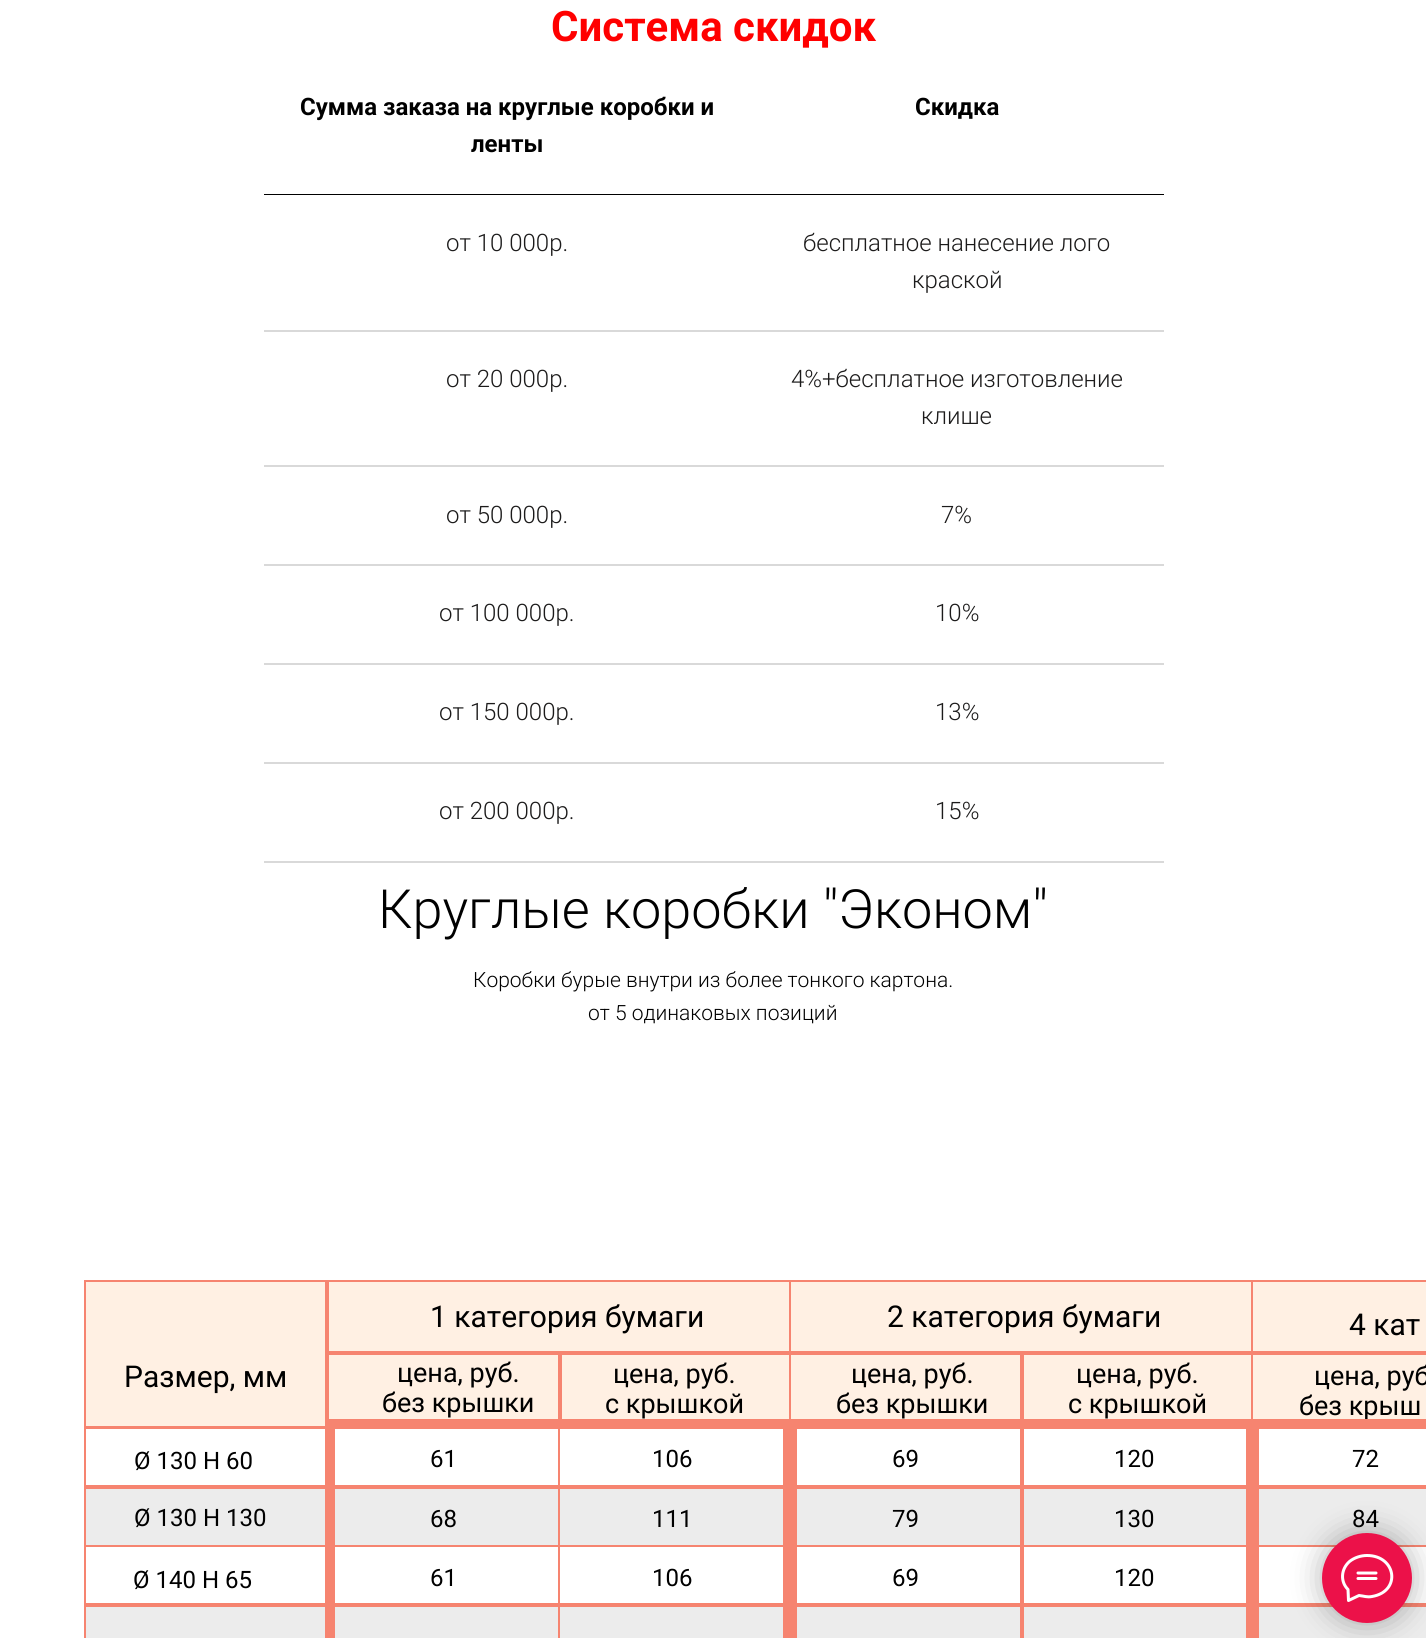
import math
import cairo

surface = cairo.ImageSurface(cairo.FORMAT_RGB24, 1426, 1638)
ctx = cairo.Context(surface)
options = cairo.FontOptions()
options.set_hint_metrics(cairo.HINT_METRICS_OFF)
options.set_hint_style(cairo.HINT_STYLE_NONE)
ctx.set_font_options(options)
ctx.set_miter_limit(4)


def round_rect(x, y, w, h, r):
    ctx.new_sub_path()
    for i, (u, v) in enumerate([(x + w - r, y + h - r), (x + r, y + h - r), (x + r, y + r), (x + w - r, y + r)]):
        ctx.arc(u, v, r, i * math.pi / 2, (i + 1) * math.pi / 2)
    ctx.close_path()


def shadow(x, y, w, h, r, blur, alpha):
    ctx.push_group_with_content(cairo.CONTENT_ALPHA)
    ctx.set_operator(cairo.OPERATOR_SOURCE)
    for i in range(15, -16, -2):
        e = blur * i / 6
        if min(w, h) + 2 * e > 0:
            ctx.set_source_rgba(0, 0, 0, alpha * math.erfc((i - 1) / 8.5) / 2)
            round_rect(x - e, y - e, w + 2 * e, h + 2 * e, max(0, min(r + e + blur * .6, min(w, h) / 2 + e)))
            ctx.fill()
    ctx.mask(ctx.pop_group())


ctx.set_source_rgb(1, 1, 1)
ctx.paint()
ctx.select_font_face("Roboto", cairo.FONT_SLANT_NORMAL, cairo.FONT_WEIGHT_BOLD)
ctx.set_font_size(42)
ctx.set_source_rgb(1, 0, 0)
ctx.move_to(551, 41)
ctx.show_text("Система скидок")
ctx.set_source_rgb(0, 0, 0)
ctx.rectangle(264, 194, 900, 1)
ctx.fill()
ctx.set_font_size(24)
ctx.move_to(300, 115)
ctx.show_text("Сумма заказа на круглые коробки и")
ctx.move_to(471, 152)
ctx.show_text("ленты")
ctx.move_to(915, 115)
ctx.show_text("Скидка")
ctx.set_source_rgb(0.851, 0.851, 0.851)
ctx.rectangle(264, 330, 900, 2)
ctx.fill()
ctx.select_font_face("Roboto Light")
ctx.set_source_rgb(0.11, 0.106, 0.106)
ctx.move_to(446, 251)
ctx.show_text("от 10 000р.")
ctx.move_to(803, 251)
ctx.show_text("бесплатное нанесение лого")
ctx.move_to(912, 288)
ctx.show_text("краской")
ctx.set_source_rgb(0.851, 0.851, 0.851)
ctx.rectangle(264, 465, 900, 2)
ctx.fill()
ctx.set_source_rgb(0.11, 0.106, 0.106)
ctx.move_to(446, 387)
ctx.show_text("от 20 000р.")
ctx.move_to(791, 387)
ctx.show_text("4%+бесплатное изготовление")
ctx.move_to(921, 424)
ctx.show_text("клише")
ctx.set_source_rgb(0.851, 0.851, 0.851)
ctx.rectangle(264, 564, 900, 2)
ctx.fill()
ctx.set_source_rgb(0.11, 0.106, 0.106)
ctx.move_to(446, 523)
ctx.show_text("от 50 000р.")
ctx.move_to(941, 523)
ctx.show_text("7%")
ctx.set_source_rgb(0.851, 0.851, 0.851)
ctx.rectangle(264, 663, 900, 2)
ctx.fill()
ctx.set_source_rgb(0.11, 0.106, 0.106)
ctx.move_to(439, 621)
ctx.show_text("от 100 000р.")
ctx.move_to(935, 621)
ctx.show_text("10%")
ctx.set_source_rgb(0.851, 0.851, 0.851)
ctx.rectangle(264, 762, 900, 2)
ctx.fill()
ctx.set_source_rgb(0.11, 0.106, 0.106)
ctx.move_to(439, 720)
ctx.show_text("от 150 000р.")
ctx.move_to(935, 720)
ctx.show_text("13%")
ctx.set_source_rgb(0.851, 0.851, 0.851)
ctx.rectangle(264, 861, 900, 2)
ctx.fill()
ctx.set_source_rgb(0.11, 0.106, 0.106)
ctx.move_to(439, 819)
ctx.show_text("от 200 000р.")
ctx.move_to(935, 819)
ctx.show_text("15%")
ctx.set_font_size(54)
ctx.set_source_rgb(0, 0, 0)
ctx.move_to(378, 928)
ctx.show_text("Круглые коробки \"Эконом\"")
ctx.set_font_size(21)
ctx.move_to(473, 987)
ctx.show_text("Коробки бурые внутри из более тонкого картона.")
ctx.move_to(588, 1020)
ctx.show_text("от 5 одинаковых позиций")
ctx.set_source_rgb(1, 0.941, 0.89)
ctx.rectangle(85, 1281, 241, 146)
ctx.fill_preserve()
ctx.set_source_rgb(0.961, 0.518, 0.439)
ctx.stroke()
ctx.set_source_rgb(1, 0.941, 0.89)
ctx.rectangle(328, 1281, 462, 71)
ctx.fill_preserve()
ctx.set_source_rgb(0.961, 0.518, 0.439)
ctx.stroke()
ctx.set_source_rgb(1, 0.941, 0.89)
ctx.rectangle(790, 1281, 462, 71)
ctx.fill_preserve()
ctx.set_source_rgb(0.961, 0.518, 0.439)
ctx.stroke()
ctx.set_source_rgb(1, 0.941, 0.89)
ctx.rectangle(1252, 1281, 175, 71)
ctx.fill_preserve()
ctx.set_source_rgb(0.961, 0.518, 0.439)
ctx.stroke()
ctx.select_font_face("Roboto")
ctx.set_font_size(30)
ctx.set_source_rgb(0, 0, 0)
ctx.move_to(430, 1327)
ctx.show_text("1 категория бумаги")
ctx.move_to(887, 1327)
ctx.show_text("2 категория бумаги")
ctx.move_to(1349, 1335)
ctx.show_text("4 кат")
ctx.set_source_rgb(1, 0.941, 0.89)
ctx.rectangle(329, 1355, 229, 64)
ctx.fill()
ctx.rectangle(328, 1354, 231, 72)
ctx.set_source_rgb(0.961, 0.518, 0.439)
ctx.stroke()
ctx.set_source_rgb(1, 0.941, 0.89)
ctx.rectangle(562, 1355, 227, 64)
ctx.fill()
ctx.rectangle(561, 1354, 230, 72)
ctx.set_source_rgb(0.961, 0.518, 0.439)
ctx.stroke()
ctx.set_source_rgb(1, 0.941, 0.89)
ctx.rectangle(791, 1355, 229, 64)
ctx.fill()
ctx.rectangle(790, 1354, 231, 72)
ctx.set_source_rgb(0.961, 0.518, 0.439)
ctx.stroke()
ctx.set_source_rgb(1, 0.941, 0.89)
ctx.rectangle(1024, 1355, 227, 64)
ctx.fill()
ctx.rectangle(1023, 1354, 230, 72)
ctx.set_source_rgb(0.961, 0.518, 0.439)
ctx.stroke()
ctx.set_source_rgb(1, 0.941, 0.89)
ctx.rectangle(1253, 1355, 173, 64)
ctx.fill()
ctx.rectangle(1252, 1354, 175, 72)
ctx.set_source_rgb(0.961, 0.518, 0.439)
ctx.stroke()
ctx.set_source_rgb(0, 0, 0)
ctx.move_to(124, 1387)
ctx.show_text("Размер, мм")
ctx.set_font_size(27)
ctx.move_to(397, 1382)
ctx.show_text("цена, руб.")
ctx.move_to(382, 1412)
ctx.show_text("без крышки")
ctx.move_to(613, 1383)
ctx.show_text("цена, руб.")
ctx.move_to(605, 1413)
ctx.show_text("с крышкой")
ctx.move_to(851, 1383)
ctx.show_text("цена, руб.")
ctx.move_to(836, 1413)
ctx.show_text("без крышки")
ctx.move_to(1076, 1383)
ctx.show_text("цена, руб.")
ctx.move_to(1068, 1413)
ctx.show_text("с крышкой")
ctx.move_to(1314, 1385)
ctx.show_text("цена, руб")
ctx.move_to(1299, 1415)
ctx.show_text("без крыш")
ctx.rectangle(85, 1428, 241, 58)
ctx.set_source_rgb(0.961, 0.518, 0.439)
ctx.stroke()
ctx.rectangle(331, 1423, 456, 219)
ctx.set_line_width(8)
ctx.stroke()
ctx.rectangle(793, 1423, 456, 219)
ctx.stroke()
ctx.rectangle(1255, 1423, 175, 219)
ctx.stroke()
ctx.rectangle(334, 1428, 225, 58)
ctx.set_line_width(2)
ctx.stroke()
ctx.rectangle(559, 1428, 225, 58)
ctx.stroke()
ctx.rectangle(796, 1428, 225, 58)
ctx.stroke()
ctx.set_source_rgb(1, 1, 1)
ctx.rectangle(1245, 1429, 1, 56)
ctx.fill()
ctx.rectangle(1023, 1428, 224, 58)
ctx.set_source_rgb(0.961, 0.518, 0.439)
ctx.stroke()
ctx.rectangle(1258, 1428, 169, 58)
ctx.stroke()
ctx.set_font_size(24)
ctx.set_source_rgb(0, 0, 0)
ctx.move_to(134, 1469)
ctx.show_text("Ø 130 H 60")
ctx.move_to(430, 1467)
ctx.show_text("61")
ctx.move_to(652, 1467)
ctx.show_text("106")
ctx.move_to(892, 1467)
ctx.show_text("69")
ctx.move_to(1114, 1467)
ctx.show_text("120")
ctx.move_to(1352, 1467)
ctx.show_text("72")
ctx.set_source_rgb(0.922, 0.922, 0.922)
ctx.rectangle(85, 1488, 241, 58)
ctx.fill_preserve()
ctx.set_source_rgb(0.961, 0.518, 0.439)
ctx.stroke()
ctx.set_source_rgb(0.922, 0.922, 0.922)
ctx.rectangle(334, 1488, 225, 58)
ctx.fill_preserve()
ctx.set_source_rgb(0.961, 0.518, 0.439)
ctx.stroke()
ctx.rectangle(334, 1546, 225, 58)
ctx.stroke()
ctx.set_source_rgb(0.922, 0.922, 0.922)
ctx.rectangle(559, 1488, 225, 58)
ctx.fill_preserve()
ctx.set_source_rgb(0.961, 0.518, 0.439)
ctx.stroke()
ctx.set_source_rgb(0.922, 0.922, 0.922)
ctx.rectangle(796, 1488, 225, 58)
ctx.fill_preserve()
ctx.set_source_rgb(0.961, 0.518, 0.439)
ctx.stroke()
ctx.set_source_rgb(0.922, 0.922, 0.922)
ctx.rectangle(1023, 1488, 224, 58)
ctx.fill_preserve()
ctx.set_source_rgb(0.961, 0.518, 0.439)
ctx.stroke()
ctx.set_source_rgb(0.922, 0.922, 0.922)
ctx.rectangle(1258, 1488, 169, 58)
ctx.fill_preserve()
ctx.set_source_rgb(0.961, 0.518, 0.439)
ctx.stroke()
ctx.set_source_rgb(0, 0, 0)
ctx.move_to(134, 1526)
ctx.show_text("Ø 130 H 130")
ctx.move_to(430, 1527)
ctx.show_text("68")
ctx.move_to(652, 1527)
ctx.show_text("111")
ctx.move_to(892, 1527)
ctx.show_text("79")
ctx.move_to(1114, 1527)
ctx.show_text("130")
ctx.move_to(1352, 1527)
ctx.show_text("84")
ctx.rectangle(85, 1546, 241, 58)
ctx.set_source_rgb(0.961, 0.518, 0.439)
ctx.stroke()
ctx.rectangle(559, 1546, 225, 58)
ctx.stroke()
ctx.rectangle(796, 1546, 225, 58)
ctx.stroke()
ctx.set_source_rgb(1, 1, 1)
ctx.rectangle(1245, 1547, 1, 56)
ctx.fill()
ctx.rectangle(1023, 1546, 224, 58)
ctx.set_source_rgb(0.961, 0.518, 0.439)
ctx.stroke()
ctx.rectangle(1258, 1546, 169, 58)
ctx.stroke()
ctx.set_source_rgb(0, 0, 0)
ctx.move_to(133, 1588)
ctx.show_text("Ø 140 H 65")
ctx.move_to(430, 1586)
ctx.show_text("61")
ctx.move_to(652, 1586)
ctx.show_text("106")
ctx.move_to(892, 1586)
ctx.show_text("69")
ctx.move_to(1114, 1586)
ctx.show_text("120")
ctx.set_source_rgb(0.922, 0.922, 0.922)
ctx.rectangle(85, 1606, 241, 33)
ctx.fill_preserve()
ctx.set_source_rgb(0.961, 0.518, 0.439)
ctx.stroke()
ctx.set_source_rgb(0.922, 0.922, 0.922)
ctx.rectangle(334, 1606, 225, 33)
ctx.fill_preserve()
ctx.set_source_rgb(0.961, 0.518, 0.439)
ctx.stroke()
ctx.set_source_rgb(0.922, 0.922, 0.922)
ctx.rectangle(559, 1606, 225, 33)
ctx.fill_preserve()
ctx.set_source_rgb(0.961, 0.518, 0.439)
ctx.stroke()
ctx.set_source_rgb(0.922, 0.922, 0.922)
ctx.rectangle(796, 1606, 225, 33)
ctx.fill_preserve()
ctx.set_source_rgb(0.961, 0.518, 0.439)
ctx.stroke()
ctx.set_source_rgb(0.922, 0.922, 0.922)
ctx.rectangle(1023, 1606, 224, 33)
ctx.fill_preserve()
ctx.set_source_rgb(0.961, 0.518, 0.439)
ctx.stroke()
ctx.set_source_rgb(0.922, 0.922, 0.922)
ctx.rectangle(1258, 1606, 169, 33)
ctx.fill_preserve()
ctx.set_source_rgb(0.961, 0.518, 0.439)
ctx.stroke()
ctx.set_source_rgb(0, 0, 0)
shadow(1322, 1533, 90, 90, 45, 15, 0.3)
ctx.set_source_rgb(0.922, 0.067, 0.286)
ctx.arc(1367, 1578, 45, 0, 2 * math.pi)
ctx.fill()
ctx.new_path()
ctx.move_to(1358, 1573)
ctx.line_to(1376, 1573)
ctx.move_to(1358, 1578.5)
ctx.line_to(1376, 1578.5)
ctx.move_to(1348, 1589.5)
ctx.curve_to(1340, 1581.5, 1341, 1569, 1349.5, 1561.5)
ctx.curve_to(1354.5, 1557.5, 1361, 1555.5, 1367, 1555.5)
ctx.curve_to(1396.5, 1555.5, 1401.5, 1591.5, 1372, 1596.5)
ctx.curve_to(1367, 1597.5, 1364, 1596, 1359, 1595.5)
ctx.line_to(1348.5, 1600.5)
ctx.close_path()
ctx.set_source_rgb(1, 1, 1)
ctx.set_line_width(3)
ctx.set_line_cap(cairo.LINE_CAP_ROUND)
ctx.set_line_join(cairo.LINE_JOIN_ROUND)
ctx.stroke()
surface.write_to_png("page.png")
